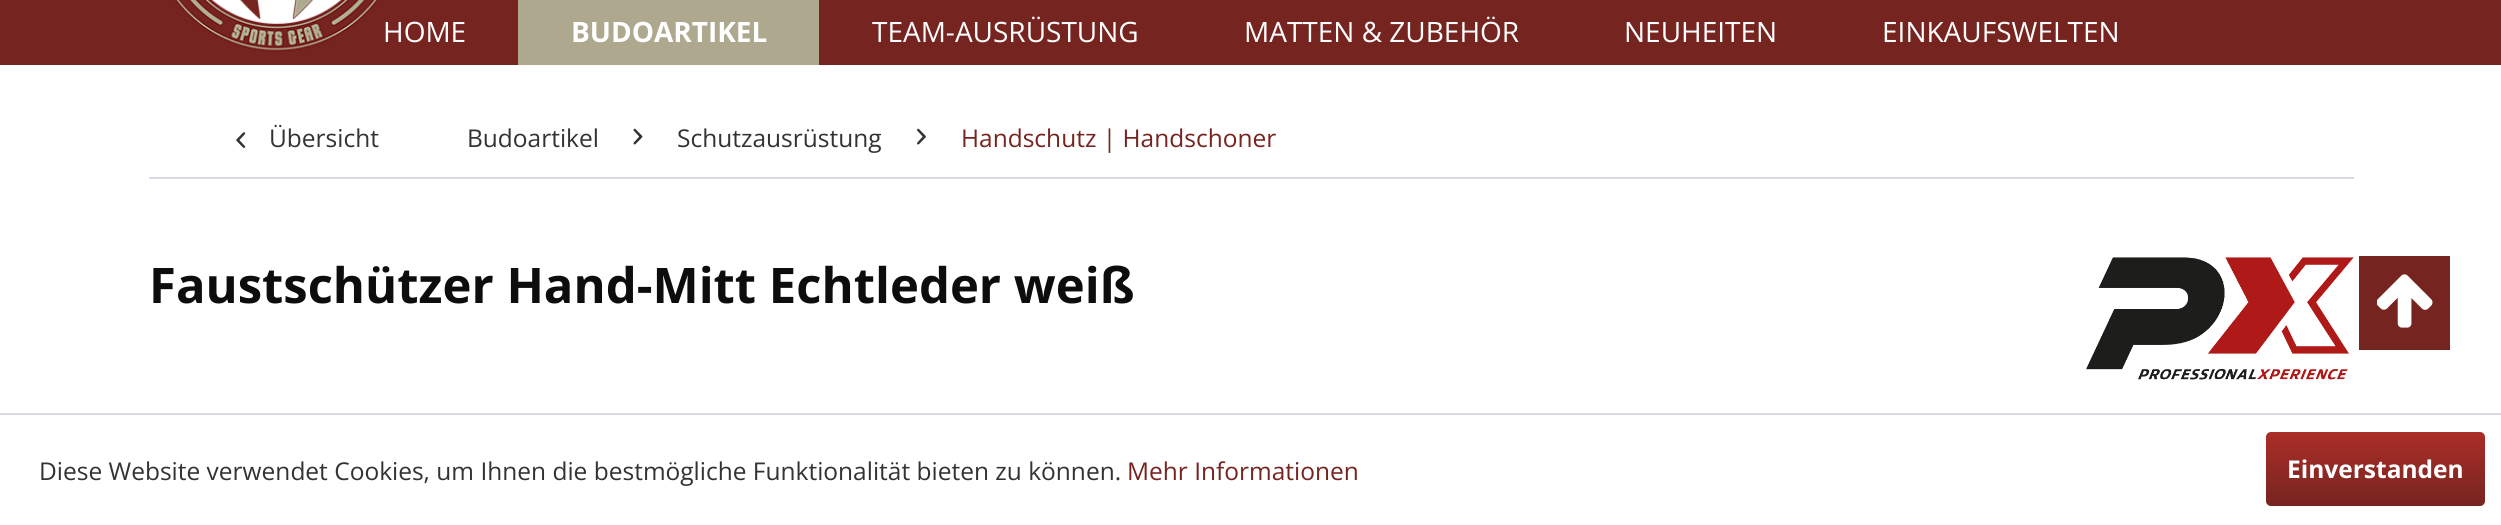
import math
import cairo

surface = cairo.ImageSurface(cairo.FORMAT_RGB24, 2501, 525)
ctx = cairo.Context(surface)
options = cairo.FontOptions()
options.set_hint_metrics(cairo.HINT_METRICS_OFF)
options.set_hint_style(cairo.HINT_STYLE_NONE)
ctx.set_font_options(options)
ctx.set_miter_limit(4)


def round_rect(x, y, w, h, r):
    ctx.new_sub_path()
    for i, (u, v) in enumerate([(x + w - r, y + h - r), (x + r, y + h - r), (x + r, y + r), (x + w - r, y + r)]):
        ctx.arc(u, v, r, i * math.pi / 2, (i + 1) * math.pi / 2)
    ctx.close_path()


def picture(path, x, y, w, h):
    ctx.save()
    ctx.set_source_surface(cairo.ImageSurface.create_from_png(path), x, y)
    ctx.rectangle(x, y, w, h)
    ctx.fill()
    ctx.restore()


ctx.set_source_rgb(1, 1, 1)
ctx.paint()
ctx.set_source_rgb(0.463, 0.141, 0.125)
ctx.rectangle(0, 0, 2501, 65)
ctx.fill()
picture("img1.png", 175, 0, 203, 52)
ctx.select_font_face("Open Sans")
ctx.set_font_size(28)
ctx.set_source_rgb(1, 1, 1)
ctx.move_to(383, 42)
ctx.show_text("HOME")
ctx.set_source_rgb(0.678, 0.659, 0.557)
ctx.rectangle(518, 0, 301, 65)
ctx.fill()
ctx.select_font_face("Open Sans", cairo.FONT_SLANT_NORMAL, cairo.FONT_WEIGHT_BOLD)
ctx.set_source_rgb(1, 1, 1)
ctx.move_to(571, 42)
ctx.show_text("BUDOARTIKEL")
ctx.select_font_face("Open Sans")
ctx.move_to(872, 42)
ctx.show_text("TEAM-AUSRÜSTUNG")
ctx.move_to(1244, 42)
ctx.show_text("MATTEN & ZUBEHÖR")
ctx.move_to(1624, 42)
ctx.show_text("NEUHEITEN")
ctx.move_to(1882, 42)
ctx.show_text("EINKAUFSWELTEN")
ctx.set_source_rgb(0.855, 0.855, 0.898)
ctx.rectangle(149, 177, 2205, 2)
ctx.fill()
picture("img2.png", 236, 132, 10, 16)
ctx.set_font_size(24.5)
ctx.set_source_rgb(0.2, 0.2, 0.2)
ctx.move_to(269, 147)
ctx.show_text("Übersicht")
ctx.move_to(467, 147)
ctx.show_text("Budoartikel")
picture("img3.png", 633, 128, 10, 17)
ctx.move_to(677, 147)
ctx.show_text("Schutzausrüstung")
picture("img4.png", 917, 128, 9, 17)
ctx.set_source_rgb(0.463, 0.141, 0.125)
ctx.move_to(961, 147)
ctx.show_text("Handschutz | Handschoner")
ctx.select_font_face("Open Sans", cairo.FONT_SLANT_NORMAL, cairo.FONT_WEIGHT_BOLD)
ctx.set_font_size(49)
ctx.set_source_rgb(0.051, 0.051, 0.051)
ctx.move_to(149, 303)
ctx.show_text("Faustschützer Hand-Mitt Echtleder weiß")
picture("img5.png", 2086, 257, 268, 123)
ctx.set_source_rgb(0.463, 0.141, 0.125)
ctx.rectangle(2359, 256, 91, 94)
ctx.fill()
picture("img6.png", 2377, 274, 56, 54)
ctx.set_source_rgb(0.855, 0.855, 0.898)
ctx.rectangle(0, 413, 2501, 2)
ctx.fill()
ctx.select_font_face("Open Sans")
ctx.set_font_size(24.5)
ctx.set_source_rgb(0.2, 0.2, 0.2)
ctx.move_to(39, 480)
ctx.show_text("Diese Website verwendet Cookies, um Ihnen die bestmögliche Funktionalität bieten zu können.")
ctx.set_source_rgb(0.463, 0.141, 0.125)
ctx.move_to(1127, 480)
ctx.show_text("Mehr Informationen")
gradient = cairo.LinearGradient(2376, 432, 2376, 506)
gradient.add_color_stop_rgba(0, 0.671, 0.18, 0.157, 1)
gradient.add_color_stop_rgba(1, 0.463, 0.141, 0.125, 1)
ctx.set_source(gradient)
round_rect(2266, 432, 219, 74, 5)
ctx.fill()
ctx.select_font_face("Open Sans", cairo.FONT_SLANT_NORMAL, cairo.FONT_WEIGHT_BOLD)
ctx.set_source_rgb(1, 1, 1)
ctx.move_to(2287, 478)
ctx.show_text("Einverstanden")
surface.write_to_png("page.png")
